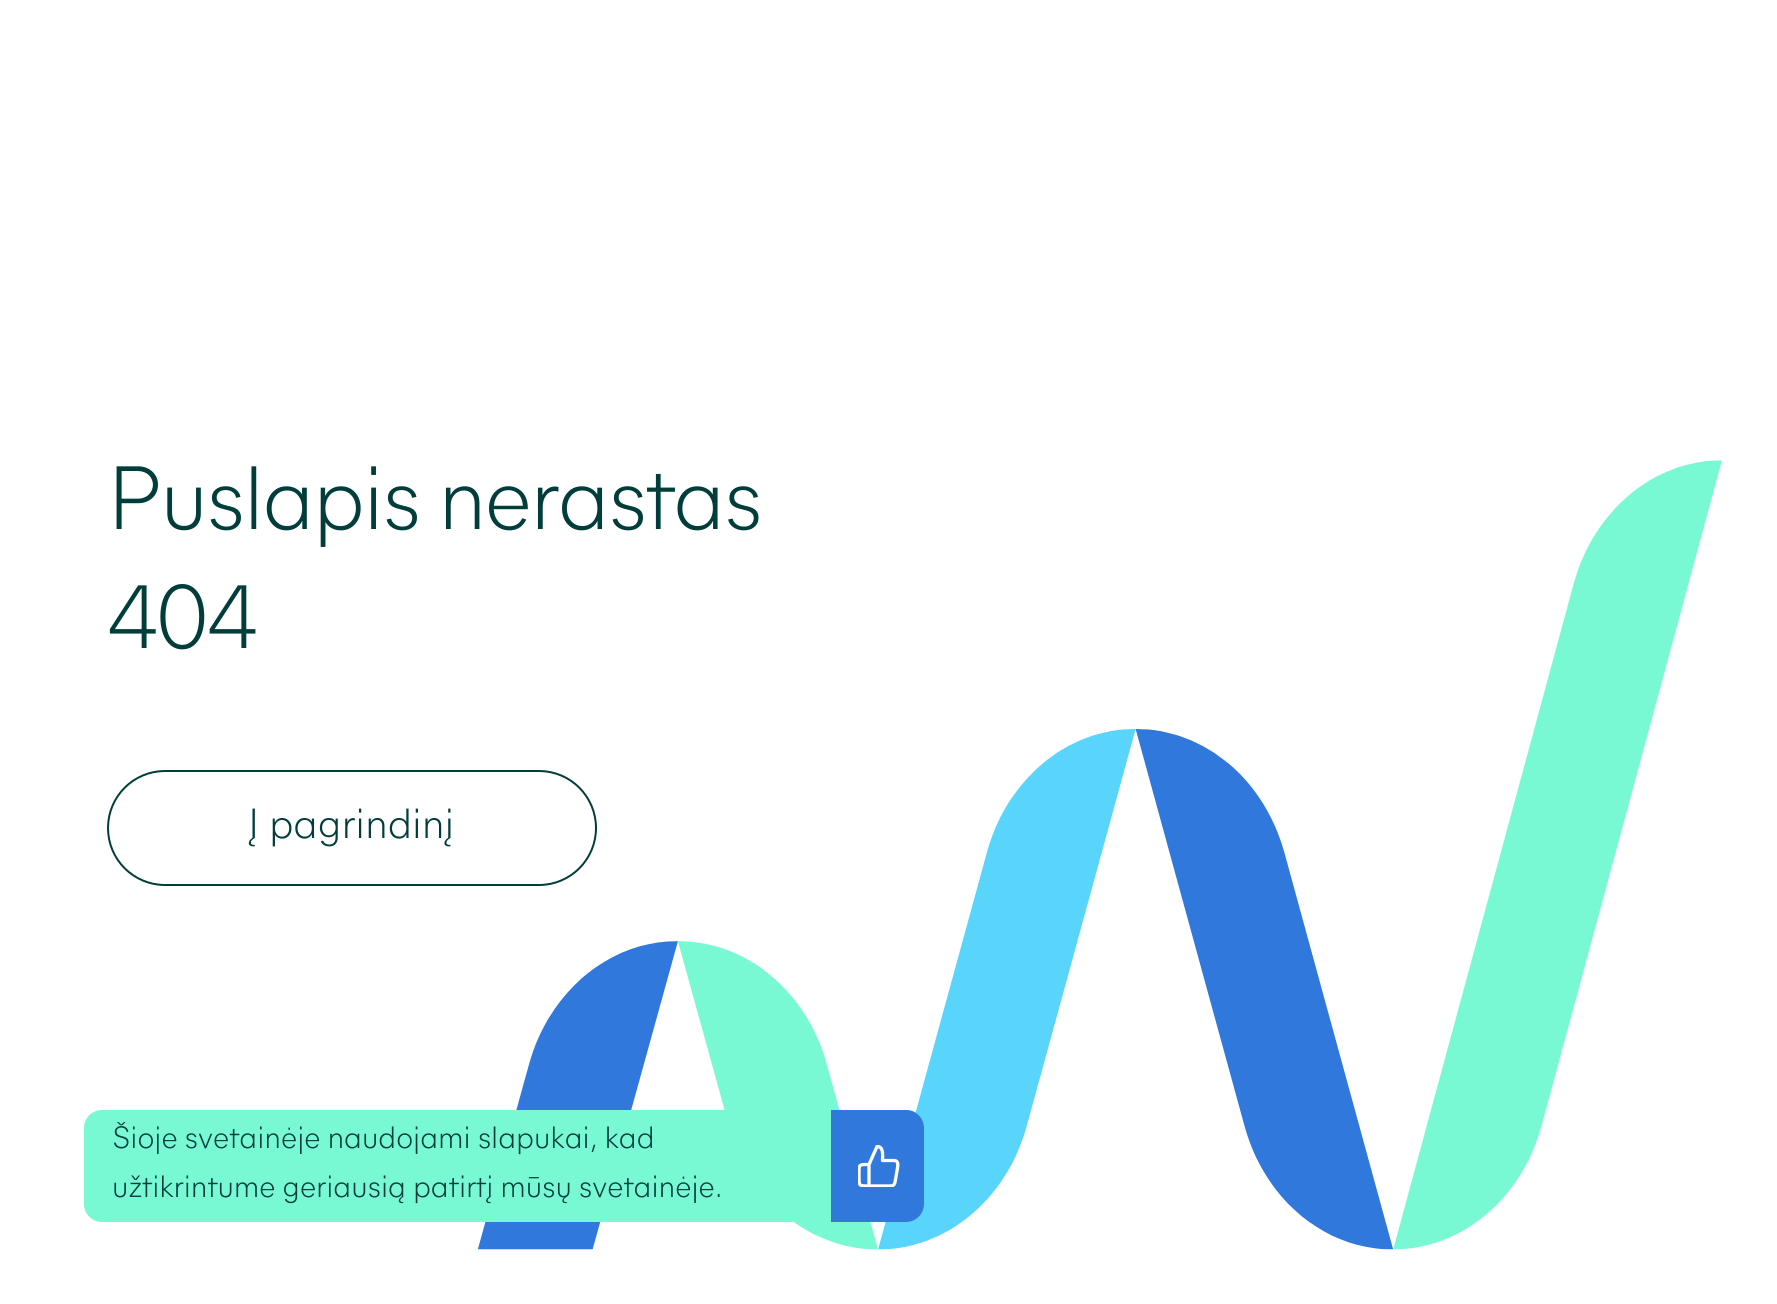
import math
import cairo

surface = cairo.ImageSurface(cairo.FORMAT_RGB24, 1777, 1304)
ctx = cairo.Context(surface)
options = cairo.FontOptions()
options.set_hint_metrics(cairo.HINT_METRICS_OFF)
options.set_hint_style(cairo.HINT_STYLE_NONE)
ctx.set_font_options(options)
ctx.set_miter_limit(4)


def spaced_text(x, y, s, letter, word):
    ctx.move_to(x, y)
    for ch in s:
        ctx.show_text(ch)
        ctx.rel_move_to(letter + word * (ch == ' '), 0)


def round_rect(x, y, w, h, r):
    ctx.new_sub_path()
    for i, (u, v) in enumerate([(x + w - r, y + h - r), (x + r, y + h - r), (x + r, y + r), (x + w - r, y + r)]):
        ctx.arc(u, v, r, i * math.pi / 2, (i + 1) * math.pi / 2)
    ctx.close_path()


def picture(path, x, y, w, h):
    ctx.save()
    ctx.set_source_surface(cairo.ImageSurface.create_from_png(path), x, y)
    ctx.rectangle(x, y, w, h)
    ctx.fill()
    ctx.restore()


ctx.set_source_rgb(1, 1, 1)
ctx.paint()
picture("img1.png", 478, 460, 1244, 790)
ctx.select_font_face("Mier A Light")
ctx.set_font_size(89.5)
ctx.set_source_rgb(0, 0.239, 0.231)
spaced_text(107, 529, "Puslapis nerastas", -1.75, 0)
spaced_text(107, 648, "404", -1.75, 0)
round_rect(108, 771, 488, 114, 57)
ctx.stroke()
ctx.set_font_size(42)
ctx.move_to(248, 838)
ctx.show_text("Į pagrindinį")
ctx.set_source_rgb(0.471, 0.976, 0.831)
round_rect(84, 1110, 840, 112, 18)
ctx.fill()
ctx.set_font_size(30.75)
ctx.set_source_rgb(0, 0.239, 0.231)
ctx.move_to(112, 1148)
ctx.show_text("Šioje svetainėje naudojami slapukai, kad")
ctx.move_to(112, 1197)
ctx.show_text("užtikrintume geriausią patirtį mūsų svetainėje.")
ctx.set_source_rgb(0.188, 0.471, 0.859)
ctx.new_path()
ctx.move_to(831, 1110)
ctx.line_to(906, 1110)
ctx.curve_to(916, 1110, 924, 1118, 924, 1128)
ctx.line_to(924, 1204)
ctx.curve_to(924, 1214, 916, 1222, 906, 1222)
ctx.line_to(831, 1222)
ctx.close_path()
ctx.fill()
ctx.save()
ctx.rectangle(858, 1145, 42, 42)
ctx.clip()
ctx.new_path()
ctx.move_to(882.5, 1160.5)
ctx.curve_to(882.5, 1155.5, 884, 1146.5, 877, 1146.5)
ctx.line_to(869, 1164.5)
ctx.line_to(869, 1186)
ctx.line_to(887.5, 1186)
ctx.curve_to(893.5, 1186, 894.5, 1186, 895.5, 1179.5)
ctx.line_to(897.5, 1168)
ctx.curve_to(898, 1165, 898.5, 1160.5, 894, 1160.5)
ctx.close_path()
ctx.move_to(869, 1186)
ctx.curve_to(858.5, 1186, 859, 1186, 859, 1175)
ctx.curve_to(859, 1164, 858.5, 1164.5, 869, 1164.5)
ctx.set_source_rgb(1, 1, 1)
ctx.set_line_width(3.3)
ctx.set_line_cap(cairo.LINE_CAP_ROUND)
ctx.set_line_join(cairo.LINE_JOIN_ROUND)
ctx.stroke()
ctx.restore()
surface.write_to_png("page.png")
